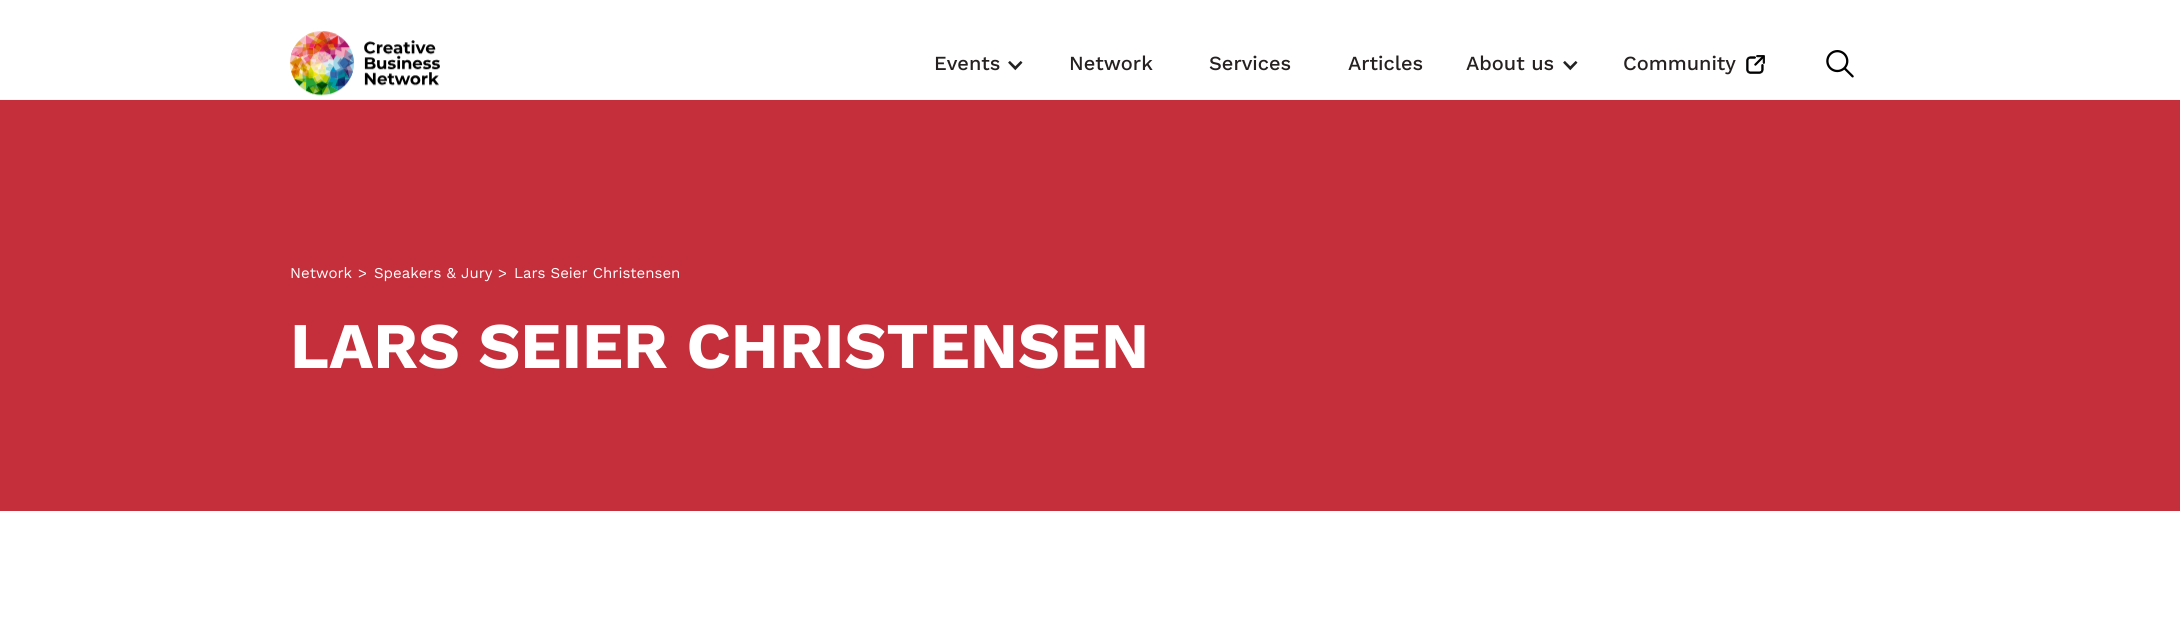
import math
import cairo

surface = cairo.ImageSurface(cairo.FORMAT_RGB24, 2180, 621)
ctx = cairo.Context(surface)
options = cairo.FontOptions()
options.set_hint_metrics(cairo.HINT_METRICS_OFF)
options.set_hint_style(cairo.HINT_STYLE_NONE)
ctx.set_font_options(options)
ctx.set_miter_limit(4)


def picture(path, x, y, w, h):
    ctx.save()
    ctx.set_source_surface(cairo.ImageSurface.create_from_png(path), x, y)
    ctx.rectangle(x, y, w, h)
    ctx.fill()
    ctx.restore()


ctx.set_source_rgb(1, 1, 1)
ctx.paint()
ctx.set_source_rgb(0.973, 0.973, 0.973)
ctx.rectangle(0, 99, 2180, 1)
ctx.fill()
picture("img1.png", 290, 31, 150, 65)
ctx.select_font_face("Work Sans Medium")
ctx.set_font_size(20)
ctx.set_source_rgb(0.149, 0.129, 0.129)
ctx.move_to(934, 70)
ctx.show_text("Events")
picture("img2.png", 1008, 61, 15, 10)
ctx.move_to(1069, 70)
ctx.show_text("Network")
ctx.move_to(1209, 70)
ctx.show_text("Services")
ctx.move_to(1348, 70)
ctx.show_text("Articles")
ctx.move_to(1466, 70)
ctx.show_text("About us")
picture("img2.png", 1563, 61, 15, 10)
ctx.move_to(1623, 70)
ctx.show_text("Community")
picture("img3.png", 1746, 55, 19, 19)
picture("img4.png", 1826, 50, 28, 28)
ctx.set_source_rgb(0.769, 0.184, 0.231)
ctx.rectangle(0, 100, 2180, 411)
ctx.fill()
ctx.select_font_face("Work Sans")
ctx.set_font_size(15)
ctx.set_source_rgb(1, 1, 1)
ctx.move_to(290, 278)
ctx.show_text("Network")
ctx.move_to(358, 278)
ctx.show_text(">")
ctx.move_to(374, 278)
ctx.show_text("Speakers & Jury")
ctx.move_to(498, 278)
ctx.show_text(">")
ctx.move_to(514, 278)
ctx.show_text("Lars Seier Christensen")
ctx.select_font_face("Work Sans", cairo.FONT_SLANT_NORMAL, cairo.FONT_WEIGHT_BOLD)
ctx.set_font_size(65)
ctx.move_to(290, 368)
ctx.show_text("LARS SEIER CHRISTENSEN")
surface.write_to_png("page.png")
